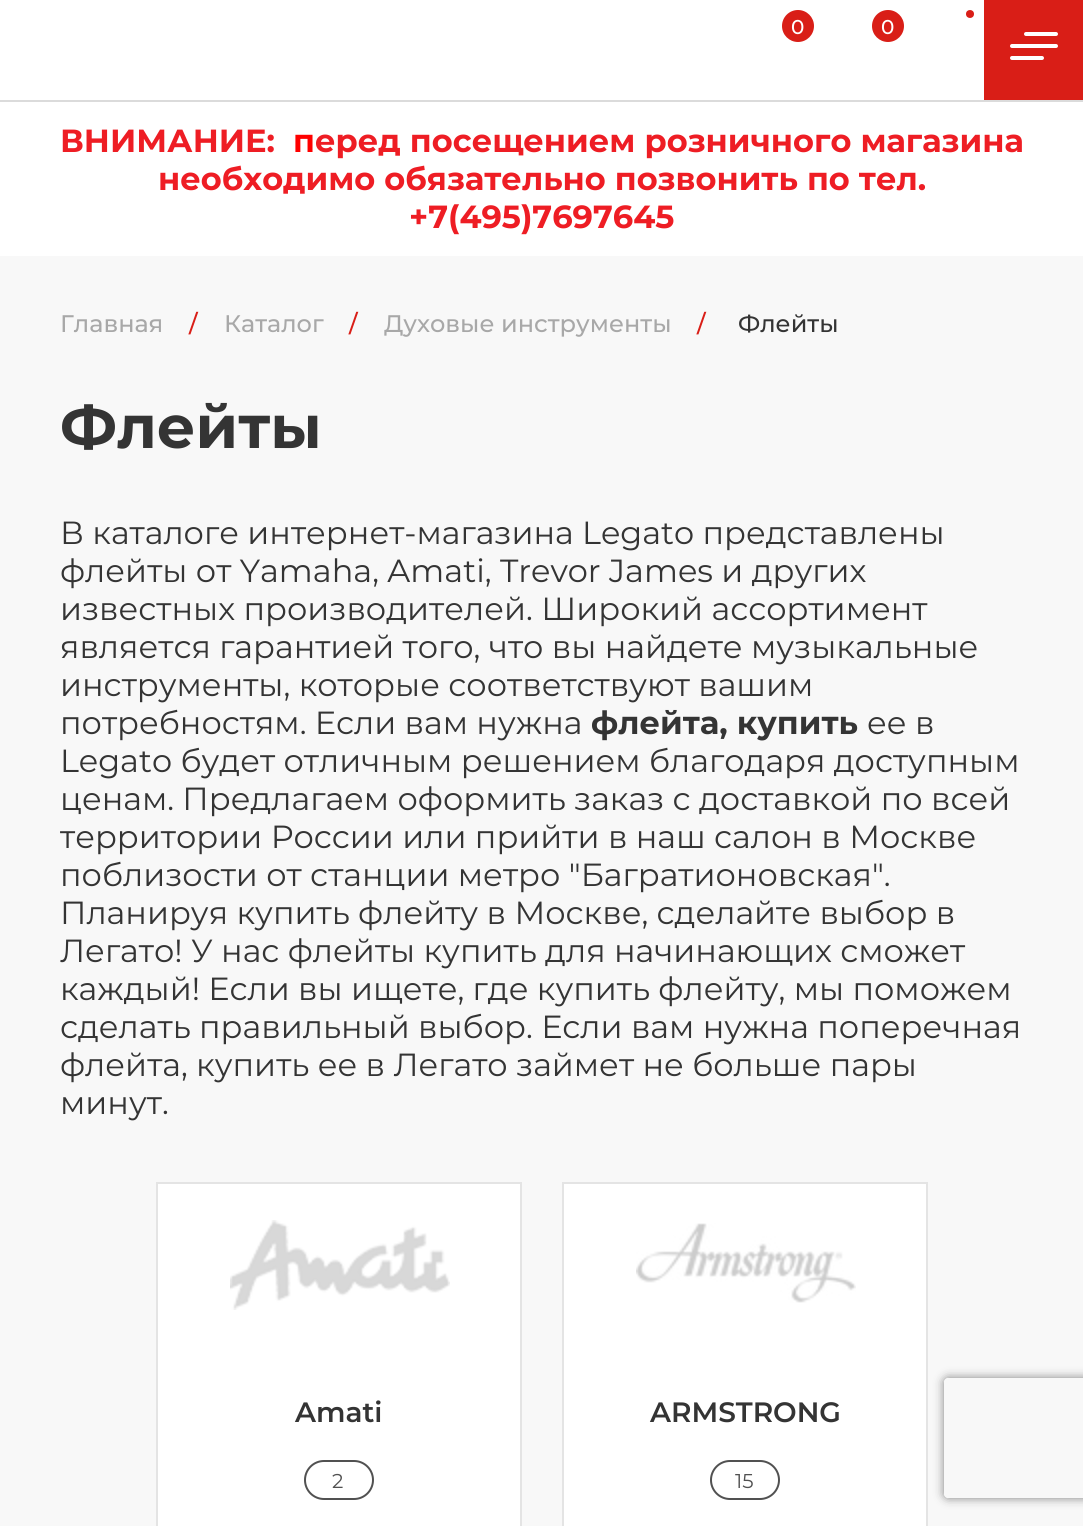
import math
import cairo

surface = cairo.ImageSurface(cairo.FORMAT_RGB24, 1083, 1526)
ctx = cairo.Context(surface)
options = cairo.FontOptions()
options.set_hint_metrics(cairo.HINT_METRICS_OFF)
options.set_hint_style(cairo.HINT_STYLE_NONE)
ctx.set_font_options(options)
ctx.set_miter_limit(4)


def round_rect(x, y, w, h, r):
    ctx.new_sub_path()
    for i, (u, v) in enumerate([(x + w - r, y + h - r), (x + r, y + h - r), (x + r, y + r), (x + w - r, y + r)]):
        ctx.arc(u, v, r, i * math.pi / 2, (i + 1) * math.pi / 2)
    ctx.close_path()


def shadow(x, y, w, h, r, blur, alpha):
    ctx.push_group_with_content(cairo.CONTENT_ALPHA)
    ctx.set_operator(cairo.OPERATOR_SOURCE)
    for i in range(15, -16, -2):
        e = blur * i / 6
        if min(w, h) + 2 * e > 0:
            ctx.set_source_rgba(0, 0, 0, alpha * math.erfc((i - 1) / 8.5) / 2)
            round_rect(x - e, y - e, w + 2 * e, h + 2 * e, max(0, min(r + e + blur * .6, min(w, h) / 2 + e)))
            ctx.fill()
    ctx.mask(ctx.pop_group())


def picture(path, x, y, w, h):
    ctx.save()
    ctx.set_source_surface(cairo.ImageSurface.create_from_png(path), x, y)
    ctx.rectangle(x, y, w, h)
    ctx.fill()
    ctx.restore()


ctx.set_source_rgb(1, 1, 1)
ctx.paint()
ctx.set_source_rgb(0.859, 0.859, 0.859)
ctx.rectangle(0, 100, 1083, 2)
ctx.fill()
ctx.set_source_rgb(0.851, 0.118, 0.09)
ctx.arc(970, 14, 4, 0, 2 * math.pi)
ctx.fill()
ctx.rectangle(984, 0, 99, 100)
ctx.fill()
ctx.set_source_rgb(1, 1, 1)
round_rect(1010, 44, 48, 4, 2)
ctx.fill()
round_rect(1024, 32, 34, 4, 2)
ctx.fill()
round_rect(1010, 56, 34, 4, 2)
ctx.fill()
ctx.set_source_rgb(0.851, 0.118, 0.09)
ctx.arc(798, 26, 16, 0, 2 * math.pi)
ctx.fill()
ctx.select_font_face("Montserrat Medium")
ctx.set_font_size(20)
ctx.set_source_rgb(1, 1, 1)
ctx.move_to(791, 34)
ctx.show_text("0")
ctx.set_source_rgb(0.851, 0.118, 0.09)
ctx.new_path()
ctx.arc(888, 26, 16, 0, 2 * math.pi)
ctx.fill()
ctx.set_source_rgb(1, 1, 1)
ctx.move_to(881, 34)
ctx.show_text("0")
ctx.select_font_face("Montserrat", cairo.FONT_SLANT_NORMAL, cairo.FONT_WEIGHT_BOLD)
ctx.set_font_size(32)
ctx.set_source_rgb(0.933, 0.114, 0.141)
ctx.move_to(60, 152)
ctx.show_text("ВНИМАНИЕ:")
ctx.set_source_rgb(1, 0, 0)
ctx.move_to(293, 152)
ctx.show_text("п")
ctx.set_source_rgb(0.933, 0.114, 0.141)
ctx.move_to(315, 152)
ctx.show_text("еред посещением розничного магазина")
ctx.move_to(158, 190)
ctx.show_text("необходимо обязательно позвонить по тел.")
ctx.move_to(409, 228)
ctx.show_text("+7(495)7697645")
ctx.set_source_rgb(0.969, 0.969, 0.969)
ctx.rectangle(0, 256, 1083, 1270)
ctx.fill()
ctx.select_font_face("Montserrat Medium")
ctx.set_font_size(24)
ctx.set_source_rgb(0.659, 0.659, 0.659)
ctx.move_to(60, 332)
ctx.show_text("Главная")
ctx.set_source_rgb(0.851, 0.118, 0.09)
ctx.move_to(189, 332)
ctx.show_text("/")
ctx.set_source_rgb(0.659, 0.659, 0.659)
ctx.move_to(224, 332)
ctx.show_text("Каталог")
ctx.set_source_rgb(0.851, 0.118, 0.09)
ctx.move_to(349, 332)
ctx.show_text("/")
ctx.set_source_rgb(0.659, 0.659, 0.659)
ctx.move_to(384, 332)
ctx.show_text("Духовые инструменты")
ctx.set_source_rgb(0.851, 0.118, 0.09)
ctx.move_to(697, 332)
ctx.show_text("/")
ctx.set_source_rgb(0.204, 0.204, 0.204)
ctx.move_to(738, 332)
ctx.show_text("Флейты")
ctx.select_font_face("Montserrat", cairo.FONT_SLANT_NORMAL, cairo.FONT_WEIGHT_BOLD)
ctx.set_font_size(60)
ctx.move_to(60, 448)
ctx.show_text("Флейты")
ctx.select_font_face("Montserrat")
ctx.set_font_size(32)
ctx.move_to(60, 544)
ctx.show_text("В каталоге интернет-магазина Legato представлены")
ctx.move_to(60, 582)
ctx.show_text("флейты от Yamaha, Amati, Trevor James и других")
ctx.move_to(60, 620)
ctx.show_text("известных производителей. Широкий ассортимент")
ctx.move_to(60, 658)
ctx.show_text("является гарантией того, что вы найдете музыкальные")
ctx.move_to(60, 696)
ctx.show_text("инструменты, которые соответствуют вашим")
ctx.move_to(60, 734)
ctx.show_text("потребностям. Если вам нужна")
ctx.select_font_face("Montserrat", cairo.FONT_SLANT_NORMAL, cairo.FONT_WEIGHT_BOLD)
ctx.move_to(591, 734)
ctx.show_text("флейта, купить")
ctx.select_font_face("Montserrat")
ctx.move_to(867, 734)
ctx.show_text("ее в")
ctx.move_to(60, 772)
ctx.show_text("Legato будет отличным решением благодаря доступным")
ctx.move_to(60, 810)
ctx.show_text("ценам. Предлагаем оформить заказ с доставкой по всей")
ctx.move_to(60, 848)
ctx.show_text("территории России или прийти в наш салон в Москве")
ctx.move_to(60, 886)
ctx.show_text("поблизости от станции метро \"Багратионовская\".")
ctx.move_to(60, 924)
ctx.show_text("Планируя купить флейту в Москве, сделайте выбор в")
ctx.move_to(60, 962)
ctx.show_text("Легато! У нас флейты купить для начинающих сможет")
ctx.move_to(60, 1000)
ctx.show_text("каждый! Если вы ищете, где купить флейту, мы поможем")
ctx.move_to(60, 1038)
ctx.show_text("сделать правильный выбор. Если вам нужна поперечная")
ctx.move_to(60, 1076)
ctx.show_text("флейта, купить ее в Легато займет не больше пары")
ctx.move_to(60, 1114)
ctx.show_text("минут.")
ctx.set_source_rgb(1, 1, 1)
ctx.rectangle(157, 1183, 364, 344)
ctx.fill_preserve()
ctx.set_source_rgb(0.894, 0.894, 0.894)
ctx.stroke()
picture("img1.png", 230, 1220, 220, 90)
ctx.select_font_face("Montserrat SemiBold")
ctx.set_font_size(28)
ctx.set_source_rgb(0.204, 0.204, 0.204)
ctx.move_to(295, 1422)
ctx.show_text("Amati")
round_rect(305, 1461, 68, 38, 19)
ctx.set_source_rgb(0.318, 0.318, 0.318)
ctx.stroke()
ctx.select_font_face("Montserrat")
ctx.set_font_size(20)
ctx.move_to(332, 1488)
ctx.show_text("2")
ctx.set_source_rgb(1, 1, 1)
ctx.rectangle(563, 1183, 364, 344)
ctx.fill_preserve()
ctx.set_source_rgb(0.894, 0.894, 0.894)
ctx.stroke()
picture("img2.png", 636, 1223, 220, 80)
ctx.select_font_face("Montserrat SemiBold")
ctx.set_font_size(28)
ctx.set_source_rgb(0.204, 0.204, 0.204)
ctx.move_to(650, 1422)
ctx.show_text("ARMSTRONG")
round_rect(711, 1461, 68, 38, 19)
ctx.set_source_rgb(0.318, 0.318, 0.318)
ctx.stroke()
ctx.select_font_face("Montserrat")
ctx.set_font_size(20)
ctx.move_to(735, 1488)
ctx.show_text("15")
ctx.save()
ctx.set_fill_rule(cairo.FILL_RULE_EVEN_ODD)
ctx.new_path()
ctx.move_to(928, 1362)
ctx.line_to(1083, 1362)
ctx.line_to(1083, 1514)
ctx.line_to(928, 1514)
ctx.close_path()
ctx.move_to(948, 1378)
ctx.line_to(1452, 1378)
ctx.curve_to(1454, 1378, 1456, 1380, 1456, 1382)
ctx.line_to(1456, 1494)
ctx.curve_to(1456, 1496, 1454, 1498, 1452, 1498)
ctx.line_to(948, 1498)
ctx.curve_to(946, 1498, 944, 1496, 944, 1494)
ctx.line_to(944, 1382)
ctx.curve_to(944, 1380, 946, 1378, 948, 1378)
ctx.close_path()
ctx.clip()
ctx.set_source_rgb(0.502, 0.502, 0.502)
shadow(944, 1378, 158, 120, 4, 5, 1)
ctx.restore()
surface.write_to_png("page.png")
